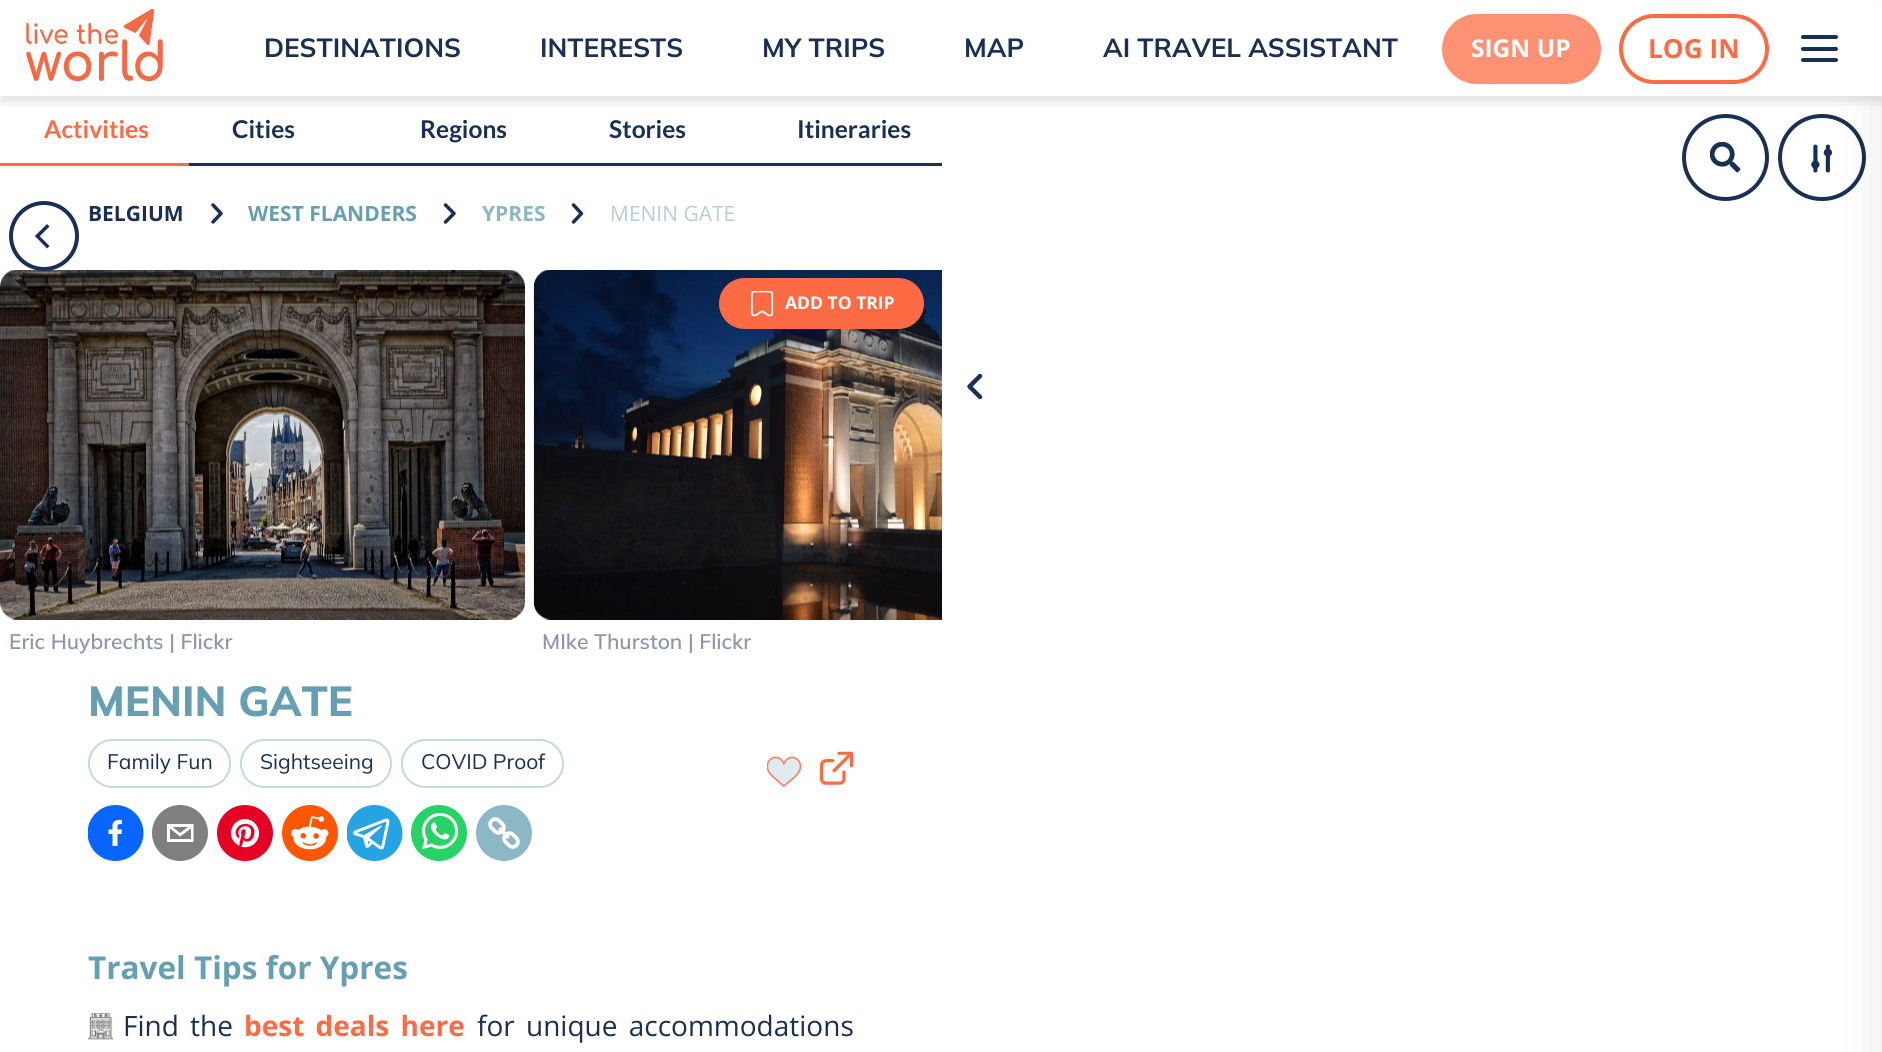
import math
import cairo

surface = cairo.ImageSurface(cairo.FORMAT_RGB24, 1882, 1052)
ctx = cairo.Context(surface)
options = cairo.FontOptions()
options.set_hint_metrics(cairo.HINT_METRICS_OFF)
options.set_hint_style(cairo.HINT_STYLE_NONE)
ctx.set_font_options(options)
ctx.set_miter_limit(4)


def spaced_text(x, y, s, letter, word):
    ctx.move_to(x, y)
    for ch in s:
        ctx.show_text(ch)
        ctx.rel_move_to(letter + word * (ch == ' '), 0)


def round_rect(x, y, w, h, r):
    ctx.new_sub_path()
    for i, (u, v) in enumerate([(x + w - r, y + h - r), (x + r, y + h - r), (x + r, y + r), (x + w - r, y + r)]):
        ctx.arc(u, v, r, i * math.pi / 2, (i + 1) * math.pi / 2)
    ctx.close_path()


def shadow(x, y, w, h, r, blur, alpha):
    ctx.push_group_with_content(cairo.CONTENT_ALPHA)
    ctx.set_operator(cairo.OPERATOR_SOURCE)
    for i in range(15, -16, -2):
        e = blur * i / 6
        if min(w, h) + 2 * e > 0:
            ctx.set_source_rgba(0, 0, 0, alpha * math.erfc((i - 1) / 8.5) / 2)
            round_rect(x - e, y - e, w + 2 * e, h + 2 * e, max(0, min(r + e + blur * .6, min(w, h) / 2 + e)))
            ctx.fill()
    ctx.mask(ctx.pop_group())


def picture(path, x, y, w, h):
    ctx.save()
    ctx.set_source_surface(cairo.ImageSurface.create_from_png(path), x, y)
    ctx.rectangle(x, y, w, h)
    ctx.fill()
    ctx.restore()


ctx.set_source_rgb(1, 1, 1)
ctx.paint()
ctx.arc(1725.5, 157.5, 41.5, 0, 2 * math.pi)
ctx.set_source_rgb(0.098, 0.184, 0.329)
ctx.set_line_width(4)
ctx.stroke()
round_rect(1780, 116, 84, 83, 41.5)
ctx.stroke()
ctx.set_source_rgb(0, 0, 0)
shadow(0, 7, 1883, 96, 0, 3.5, 0.1)
picture("img14.png", 1811, 144, 21, 29)
shadow(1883, 35, 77, 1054, 0, 26, 0.1)
ctx.set_source_rgb(1, 1, 1)
ctx.rectangle(0, 2, 1882, 94)
ctx.fill()
picture("img1.png", 26, 9, 137, 73)
ctx.select_font_face("Mulish", cairo.FONT_SLANT_NORMAL, cairo.FONT_WEIGHT_BOLD)
ctx.set_font_size(26.25)
ctx.set_source_rgb(0.098, 0.184, 0.329)
ctx.move_to(264, 57)
ctx.show_text("DESTINATIONS")
ctx.move_to(540, 57)
ctx.show_text("INTERESTS")
ctx.move_to(762, 57)
ctx.show_text("MY TRIPS")
ctx.move_to(964, 57)
ctx.show_text("MAP")
ctx.move_to(1103, 57)
ctx.show_text("AI TRAVEL ASSISTANT")
ctx.set_source_rgb(0.992, 0.569, 0.451)
round_rect(1444, 16, 155, 66, 33)
ctx.fill_preserve()
ctx.stroke()
ctx.select_font_face("Open Sans", cairo.FONT_SLANT_NORMAL, cairo.FONT_WEIGHT_BOLD)
ctx.set_font_size(24.5)
ctx.set_source_rgb(1, 1, 1)
ctx.move_to(1471, 57)
ctx.show_text("SIGN UP")
round_rect(1621, 16, 146, 66, 33)
ctx.set_source_rgb(0.988, 0.42, 0.263)
ctx.stroke()
ctx.set_font_size(26.25)
ctx.move_to(1648, 58)
ctx.show_text("LOG IN")
ctx.set_source_rgb(0.098, 0.184, 0.329)
round_rect(1801, 35, 37, 4, 2)
ctx.fill()
round_rect(1801, 47, 37, 4, 2)
ctx.fill()
round_rect(1801, 58, 37, 4, 2)
ctx.fill()
ctx.set_source_rgb(0.988, 0.424, 0.267)
ctx.rectangle(0, 163, 189, 3)
ctx.fill()
ctx.select_font_face("Lato", cairo.FONT_SLANT_NORMAL, cairo.FONT_WEIGHT_BOLD)
ctx.set_font_size(24.5)
ctx.set_source_rgb(0.988, 0.42, 0.263)
ctx.move_to(44, 138)
ctx.show_text("Activities")
ctx.set_source_rgb(0.098, 0.184, 0.329)
ctx.rectangle(189, 163, 753, 3)
ctx.fill()
ctx.move_to(232, 138)
ctx.show_text("Cities")
ctx.move_to(420, 138)
ctx.show_text("Regions")
ctx.move_to(609, 138)
ctx.show_text("Stories")
ctx.move_to(797, 138)
ctx.show_text("Itineraries")
ctx.select_font_face("Open Sans", cairo.FONT_SLANT_NORMAL, cairo.FONT_WEIGHT_BOLD)
ctx.set_font_size(21)
ctx.move_to(88, 221)
ctx.show_text("BELGIUM")
ctx.new_path()
ctx.move_to(213, 222)
ctx.line_to(221, 213.5)
ctx.line_to(213, 205)
ctx.set_line_width(3.5)
ctx.set_line_cap(cairo.LINE_CAP_ROUND)
ctx.set_line_join(cairo.LINE_JOIN_ROUND)
ctx.stroke()
ctx.set_source_rgb(0.4, 0.624, 0.698)
ctx.move_to(248, 221)
ctx.show_text("WEST FLANDERS")
ctx.new_path()
ctx.move_to(445.5, 222)
ctx.line_to(454, 213.5)
ctx.line_to(445.5, 205)
ctx.set_source_rgb(0.098, 0.184, 0.329)
ctx.stroke()
ctx.set_source_rgb(0.549, 0.718, 0.773)
ctx.move_to(482, 221)
ctx.show_text("YPRES")
ctx.new_path()
ctx.move_to(573.5, 222)
ctx.line_to(581.5, 213.5)
ctx.line_to(573.5, 205)
ctx.set_source_rgb(0.098, 0.184, 0.329)
ctx.stroke()
ctx.select_font_face("Open Sans")
ctx.set_source_rgb(0.702, 0.812, 0.847)
ctx.move_to(610, 221)
ctx.show_text("MENIN GATE")
picture("img4.png", 533, 270, 409, 350)
ctx.set_source_rgb(0.988, 0.42, 0.263)
round_rect(721, 280, 201, 47, 23.5)
ctx.fill_preserve()
ctx.set_line_width(4)
ctx.set_line_cap(cairo.LINE_CAP_BUTT)
ctx.set_line_join(cairo.LINE_JOIN_MITER)
ctx.stroke()
picture("img2.png", 751, 291, 23, 26)
ctx.select_font_face("Open Sans", cairo.FONT_SLANT_NORMAL, cairo.FONT_WEIGHT_BOLD)
ctx.set_font_size(17.5)
ctx.set_source_rgb(1, 1, 1)
ctx.move_to(785, 309)
ctx.show_text("ADD TO TRIP")
picture("img3.png", 0, 270, 525, 350)
ctx.select_font_face("Mulish SemiBold")
ctx.set_font_size(21)
ctx.set_source_rgb(0.549, 0.592, 0.663)
ctx.move_to(9, 649)
ctx.show_text("Eric Huybrechts | Flickr")
ctx.move_to(542, 649)
ctx.show_text("MIke Thurston | Flickr")
ctx.select_font_face("Mulish ExtraBold")
ctx.set_font_size(42)
ctx.set_source_rgb(0.4, 0.624, 0.698)
ctx.move_to(88, 716)
ctx.show_text("MENIN GATE")
round_rect(89, 740, 141, 47, 23.5)
ctx.set_source_rgb(0.761, 0.851, 0.878)
ctx.set_line_width(2)
ctx.stroke()
ctx.select_font_face("Mulish")
ctx.set_font_size(21)
ctx.set_source_rgb(0.098, 0.184, 0.329)
ctx.move_to(107, 769)
ctx.show_text("Family Fun")
round_rect(241, 740, 150, 47, 23.5)
ctx.set_source_rgb(0.761, 0.851, 0.878)
ctx.stroke()
ctx.set_source_rgb(0.098, 0.184, 0.329)
ctx.move_to(260, 769)
ctx.show_text("Sightseeing")
round_rect(402, 740, 161, 47, 23.5)
ctx.set_source_rgb(0.761, 0.851, 0.878)
ctx.stroke()
ctx.set_source_rgb(0.098, 0.184, 0.329)
ctx.move_to(421, 769)
ctx.show_text("COVID Proof")
ctx.save()
ctx.rectangle(88, 805, 56, 56)
ctx.clip()
ctx.set_source_rgb(0.035, 0.396, 0.996)
ctx.arc(115.5, 833, 28, 0, 2 * math.pi)
ctx.fill()
ctx.restore()
ctx.set_source_rgb(1, 1, 1)
ctx.new_path()
ctx.move_to(117.5, 846)
ctx.line_to(117.5, 834)
ctx.line_to(121.5, 834)
ctx.line_to(122, 829.5)
ctx.line_to(117.5, 829.5)
ctx.curve_to(117.5, 824.5, 117, 824, 122, 824)
ctx.line_to(122, 820)
ctx.curve_to(118, 819.5, 113.5, 820, 112.5, 824.5)
ctx.line_to(112.5, 829.5)
ctx.line_to(108.5, 829.5)
ctx.line_to(108.5, 834)
ctx.line_to(112.5, 834)
ctx.line_to(112.5, 846)
ctx.close_path()
ctx.fill()
ctx.set_source_rgb(0.498, 0.498, 0.498)
ctx.arc(180, 833, 28, 0, 2 * math.pi)
ctx.fill()
ctx.set_source_rgb(1, 1, 1)
ctx.new_path()
ctx.move_to(167, 824)
ctx.line_to(167, 842)
ctx.line_to(193.5, 842)
ctx.line_to(193.5, 824)
ctx.close_path()
ctx.move_to(188, 827)
ctx.line_to(180, 833)
ctx.line_to(172.5, 827)
ctx.close_path()
ctx.move_to(170, 839)
ctx.line_to(170, 828.5)
ctx.line_to(180, 836.5)
ctx.line_to(191, 828.5)
ctx.line_to(191, 839)
ctx.close_path()
ctx.fill()
picture("img5.png", 217, 805, 56, 56)
picture("img6.png", 282, 805, 56, 56)
picture("img7.png", 347, 805, 56, 56)
picture("img8.png", 411, 805, 56, 56)
picture("img9.png", 476, 805, 56, 56)
picture("img10.png", 767, 756, 35, 31)
picture("img11.png", 819, 751, 35, 34)
ctx.select_font_face("Open Sans", cairo.FONT_SLANT_NORMAL, cairo.FONT_WEIGHT_BOLD)
ctx.set_font_size(31.5)
ctx.set_source_rgb(0.4, 0.624, 0.698)
ctx.move_to(88, 979)
ctx.show_text("Travel Tips for Ypres")
picture("img12.png", 88, 1013, 26, 27)
ctx.select_font_face("Open Sans")
ctx.set_font_size(28)
ctx.set_source_rgb(0.098, 0.184, 0.329)
spaced_text(123, 1036, "Find the", 0, 4)
ctx.select_font_face("Open Sans", cairo.FONT_SLANT_NORMAL, cairo.FONT_WEIGHT_BOLD)
ctx.set_source_rgb(0.988, 0.42, 0.263)
spaced_text(244, 1036, "best deals here", 0, 4)
ctx.select_font_face("Open Sans")
ctx.set_source_rgb(0.098, 0.184, 0.329)
spaced_text(477, 1036, "for unique accommodations", 0, 4)
ctx.set_source_rgb(1, 1, 1)
ctx.new_path()
ctx.arc(44, 236, 33, 0, 2 * math.pi)
ctx.fill_preserve()
ctx.set_source_rgb(0.098, 0.184, 0.329)
ctx.set_line_width(4)
ctx.stroke()
ctx.new_path()
ctx.move_to(37.5, 234)
ctx.line_to(49.5, 246)
ctx.line_to(47, 248.5)
ctx.line_to(35, 236)
ctx.close_path()
ctx.fill()
ctx.new_path()
ctx.move_to(47, 224)
ctx.line_to(49.5, 226.5)
ctx.line_to(37.5, 238.5)
ctx.line_to(35, 236)
ctx.close_path()
ctx.fill()
ctx.new_path()
ctx.move_to(980, 397)
ctx.line_to(969.5, 386.5)
ctx.line_to(980, 376)
ctx.set_line_width(4.4)
ctx.set_line_cap(cairo.LINE_CAP_ROUND)
ctx.set_line_join(cairo.LINE_JOIN_ROUND)
ctx.stroke()
picture("img13.png", 1710, 142, 31, 31)
surface.write_to_png("page.png")
